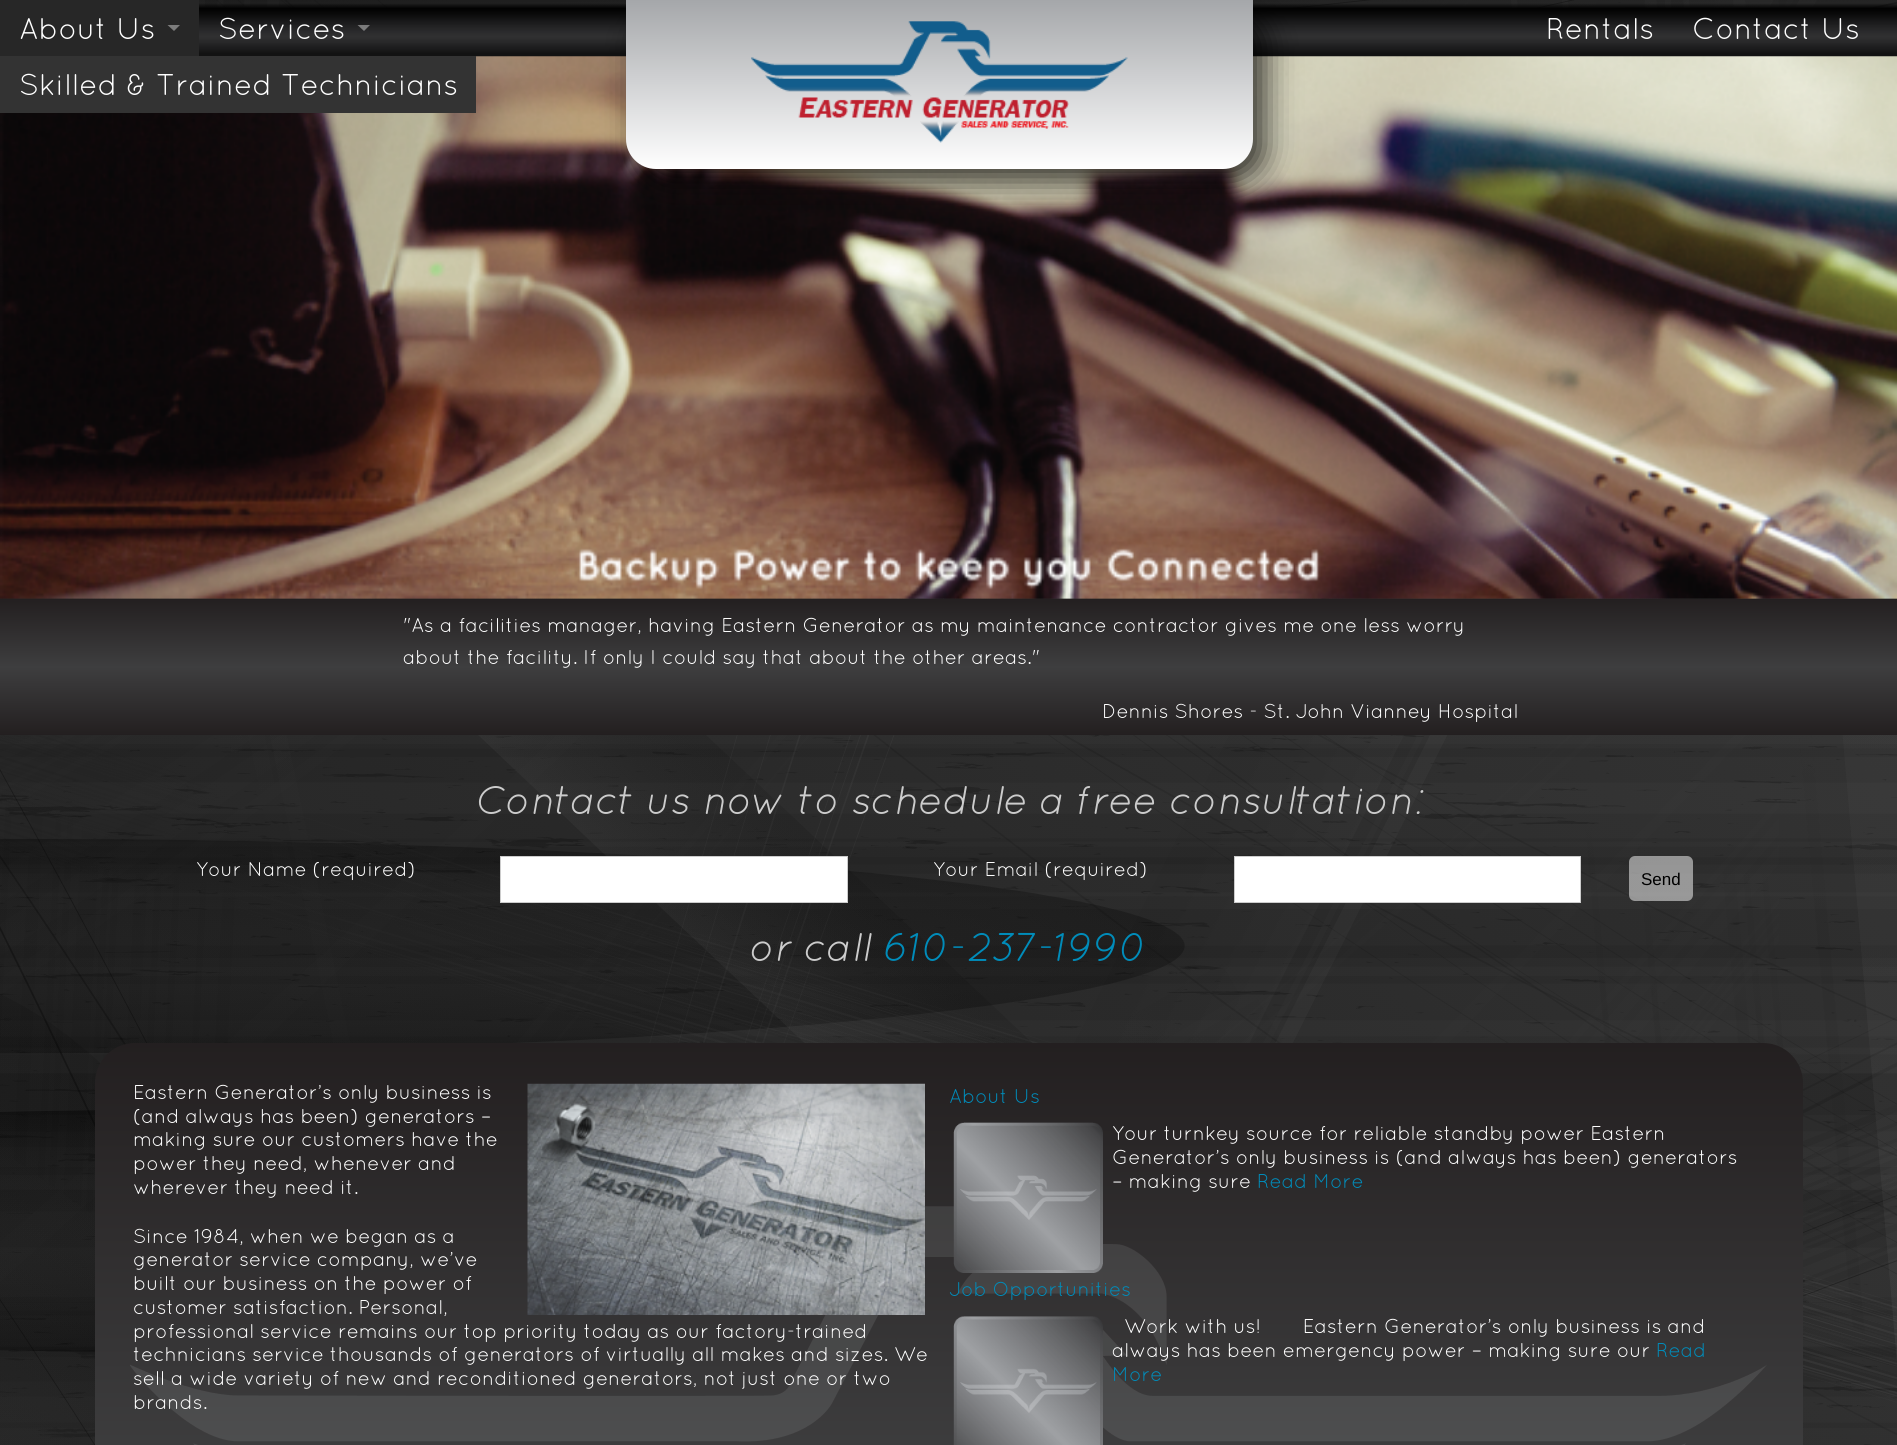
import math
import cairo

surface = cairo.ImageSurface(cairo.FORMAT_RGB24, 1897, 1445)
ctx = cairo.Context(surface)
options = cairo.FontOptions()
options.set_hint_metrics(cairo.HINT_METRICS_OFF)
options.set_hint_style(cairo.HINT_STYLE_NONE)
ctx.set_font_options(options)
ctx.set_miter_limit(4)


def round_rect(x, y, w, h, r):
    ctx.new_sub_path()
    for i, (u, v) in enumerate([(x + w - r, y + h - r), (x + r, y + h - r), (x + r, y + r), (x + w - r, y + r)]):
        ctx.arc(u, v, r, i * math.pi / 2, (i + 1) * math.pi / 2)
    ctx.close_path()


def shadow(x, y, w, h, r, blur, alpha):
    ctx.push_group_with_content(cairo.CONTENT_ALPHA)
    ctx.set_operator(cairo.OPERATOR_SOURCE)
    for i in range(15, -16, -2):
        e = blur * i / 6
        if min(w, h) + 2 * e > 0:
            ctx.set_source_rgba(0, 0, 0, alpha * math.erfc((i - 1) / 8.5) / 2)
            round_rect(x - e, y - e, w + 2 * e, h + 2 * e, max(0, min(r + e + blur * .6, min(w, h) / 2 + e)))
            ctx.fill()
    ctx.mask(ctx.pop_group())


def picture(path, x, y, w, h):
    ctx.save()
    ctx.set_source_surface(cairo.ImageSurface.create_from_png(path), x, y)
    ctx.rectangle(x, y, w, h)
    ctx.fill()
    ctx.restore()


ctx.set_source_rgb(1, 1, 1)
ctx.paint()
picture("img1.png", 0, 0, 1897, 1445)
picture("img4.png", 0, 56, 1897, 543)
picture("img2.png", 199, 0, 1698, 57)
ctx.select_font_face("Quicksand")
ctx.set_font_size(30)
ctx.set_source_rgb(1, 1, 1)
ctx.move_to(218, 39)
ctx.show_text("Services")
ctx.set_source_rgba(1, 1, 1, 0.4)
ctx.new_path()
ctx.move_to(357.5, 25)
ctx.line_to(370, 25)
ctx.line_to(364, 31)
ctx.close_path()
ctx.fill()
ctx.set_source_rgb(0.153, 0.153, 0.153)
ctx.rectangle(0, 0, 199, 56)
ctx.fill()
ctx.set_source_rgb(1, 1, 1)
ctx.move_to(19, 39)
ctx.show_text("About Us")
ctx.set_source_rgb(0.49, 0.49, 0.49)
ctx.new_path()
ctx.move_to(167.5, 25)
ctx.line_to(180, 25)
ctx.line_to(174, 31)
ctx.close_path()
ctx.fill()
ctx.set_source_rgb(0.2, 0.2, 0.2)
ctx.rectangle(0, 56, 476, 57)
ctx.fill()
ctx.set_source_rgb(1, 1, 1)
ctx.move_to(19, 95)
ctx.show_text("Skilled & Trained Technicians")
ctx.set_source_rgb(0, 0, 0)
shadow(639, 13, 626, 168, 30, 16, 0.75)
gradient = cairo.LinearGradient(939, 169, 939, 0)
gradient.add_color_stop_rgba(0, 1, 1, 1, 1)
gradient.add_color_stop_rgba(1, 0.647, 0.655, 0.667, 1)
ctx.set_source(gradient)
ctx.new_path()
ctx.move_to(626, 0)
ctx.line_to(1253, 0)
ctx.line_to(1253, 139)
ctx.curve_to(1253, 155.5, 1239.5, 169, 1223, 169)
ctx.line_to(656, 169)
ctx.curve_to(639.5, 169, 626, 155.5, 626, 139)
ctx.close_path()
ctx.fill()
picture("img3.png", 751, 21, 377, 122)
ctx.set_source_rgb(1, 1, 1)
ctx.move_to(1546, 39)
ctx.show_text("Rentals")
ctx.move_to(1692, 39)
ctx.show_text("Contact Us")
gradient = cairo.LinearGradient(949, 735, 949, 599)
gradient.add_color_stop_rgba(0, 0.137, 0.122, 0.125, 1)
gradient.add_color_stop_rgba(0.5, 0.243, 0.243, 0.247, 1)
gradient.add_color_stop_rgba(1, 0.137, 0.122, 0.125, 1)
ctx.set_source(gradient)
ctx.rectangle(0, 599, 1897, 136)
ctx.fill()
ctx.set_font_size(20)
ctx.set_source_rgb(1, 1, 1)
ctx.move_to(403, 632)
ctx.show_text("\"As a facilities manager, having Eastern Generator as my maintenance contractor gives me one less worry")
ctx.move_to(403, 664)
ctx.show_text("about the facility. If only I could say that about the other areas.\"")
ctx.move_to(1102, 718)
ctx.show_text("Dennis Shores - St. John Vianney Hospital")
ctx.select_font_face("Quicksand", cairo.FONT_SLANT_ITALIC)
ctx.set_font_size(40)
ctx.set_source_rgb(0.8, 0.8, 0.8)
ctx.move_to(476, 814)
ctx.show_text("Contact us now to schedule a free consultation:")
ctx.select_font_face("Quicksand")
ctx.set_font_size(20)
ctx.set_source_rgb(1, 1, 1)
ctx.move_to(196, 876)
ctx.show_text("Your Name (required)")
ctx.rectangle(500.5, 856.5, 347, 46)
ctx.fill_preserve()
ctx.set_source_rgb(0.8, 0.8, 0.8)
ctx.set_line_width(1)
ctx.stroke()
ctx.set_source_rgb(1, 1, 1)
ctx.move_to(933, 876)
ctx.show_text("Your Email (required)")
ctx.rectangle(1234.5, 856.5, 346, 46)
ctx.fill_preserve()
ctx.set_source_rgb(0.8, 0.8, 0.8)
ctx.stroke()
ctx.set_source_rgba(1, 1, 1, 0.5)
round_rect(1629, 856, 64, 45, 6)
ctx.fill()
ctx.select_font_face("Liberation Sans")
ctx.set_font_size(17)
ctx.set_source_rgb(0, 0, 0)
ctx.move_to(1641, 885)
ctx.show_text("Send")
ctx.select_font_face("Quicksand", cairo.FONT_SLANT_ITALIC)
ctx.set_font_size(40)
ctx.set_source_rgb(0.8, 0.8, 0.8)
ctx.move_to(749, 961)
ctx.show_text("or call")
ctx.set_source_rgb(0, 0.549, 0.729)
ctx.move_to(883, 961)
ctx.show_text("610-237-1990")
gradient = cairo.LinearGradient(949, 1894, 949, 1043)
gradient.add_color_stop_rgba(0, 0.137, 0.122, 0.125, 1)
gradient.add_color_stop_rgba(0.5, 0.243, 0.243, 0.247, 1)
gradient.add_color_stop_rgba(1, 0.137, 0.122, 0.125, 1)
ctx.set_source(gradient)
round_rect(95, 1043, 1708, 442, 40)
ctx.fill()
picture("img5.png", 130, 1206, 1637, 239)
ctx.select_font_face("Quicksand")
ctx.set_font_size(20)
ctx.set_source_rgb(1, 1, 1)
ctx.move_to(133, 1099)
ctx.show_text("Eastern Generator’s only business is")
picture("img6.png", 527, 1083, 398, 232)
ctx.move_to(133, 1123)
ctx.show_text("(and always has been) generators –")
ctx.move_to(133, 1146)
ctx.show_text("making sure our customers have the")
ctx.move_to(133, 1170)
ctx.show_text("power they need, whenever and")
ctx.move_to(133, 1194)
ctx.show_text("wherever they need it.")
ctx.move_to(133, 1243)
ctx.show_text("Since 1984, when we began as a")
ctx.move_to(133, 1266)
ctx.show_text("generator service company, we’ve")
ctx.move_to(133, 1290)
ctx.show_text("built our business on the power of")
ctx.move_to(133, 1314)
ctx.show_text("customer satisfaction. Personal,")
ctx.move_to(133, 1338)
ctx.show_text("professional service remains our top priority today as our factory-trained")
ctx.move_to(133, 1361)
ctx.show_text("technicians service thousands of generators of virtually all makes and sizes. We")
ctx.move_to(133, 1385)
ctx.show_text("sell a wide variety of new and reconditioned generators, not just one or two")
ctx.move_to(133, 1409)
ctx.show_text("brands.")
ctx.set_source_rgb(0, 0.549, 0.729)
ctx.move_to(949, 1103)
ctx.show_text("About Us")
picture("img7.png", 953, 1122, 150, 151)
ctx.set_source_rgb(1, 1, 1)
ctx.move_to(1112, 1140)
ctx.show_text("Your turnkey source for reliable standby power Eastern")
ctx.move_to(1112, 1164)
ctx.show_text("Generator’s only business is (and always has been) generators")
ctx.move_to(1112, 1188)
ctx.show_text("– making sure")
ctx.set_source_rgb(0, 0.549, 0.729)
ctx.move_to(1257, 1188)
ctx.show_text("Read More")
ctx.move_to(949, 1296)
ctx.show_text("Job Opportunities")
picture("img8.png", 953, 1316, 150, 129)
ctx.set_source_rgb(1, 1, 1)
ctx.move_to(1124, 1333)
ctx.show_text("Work with us!       Eastern Generator’s only business is and")
ctx.move_to(1112, 1357)
ctx.show_text("always has been emergency power – making sure our")
ctx.set_source_rgb(0, 0.549, 0.729)
ctx.move_to(1656, 1357)
ctx.show_text("Read")
ctx.move_to(1112, 1381)
ctx.show_text("More")
surface.write_to_png("page.png")
